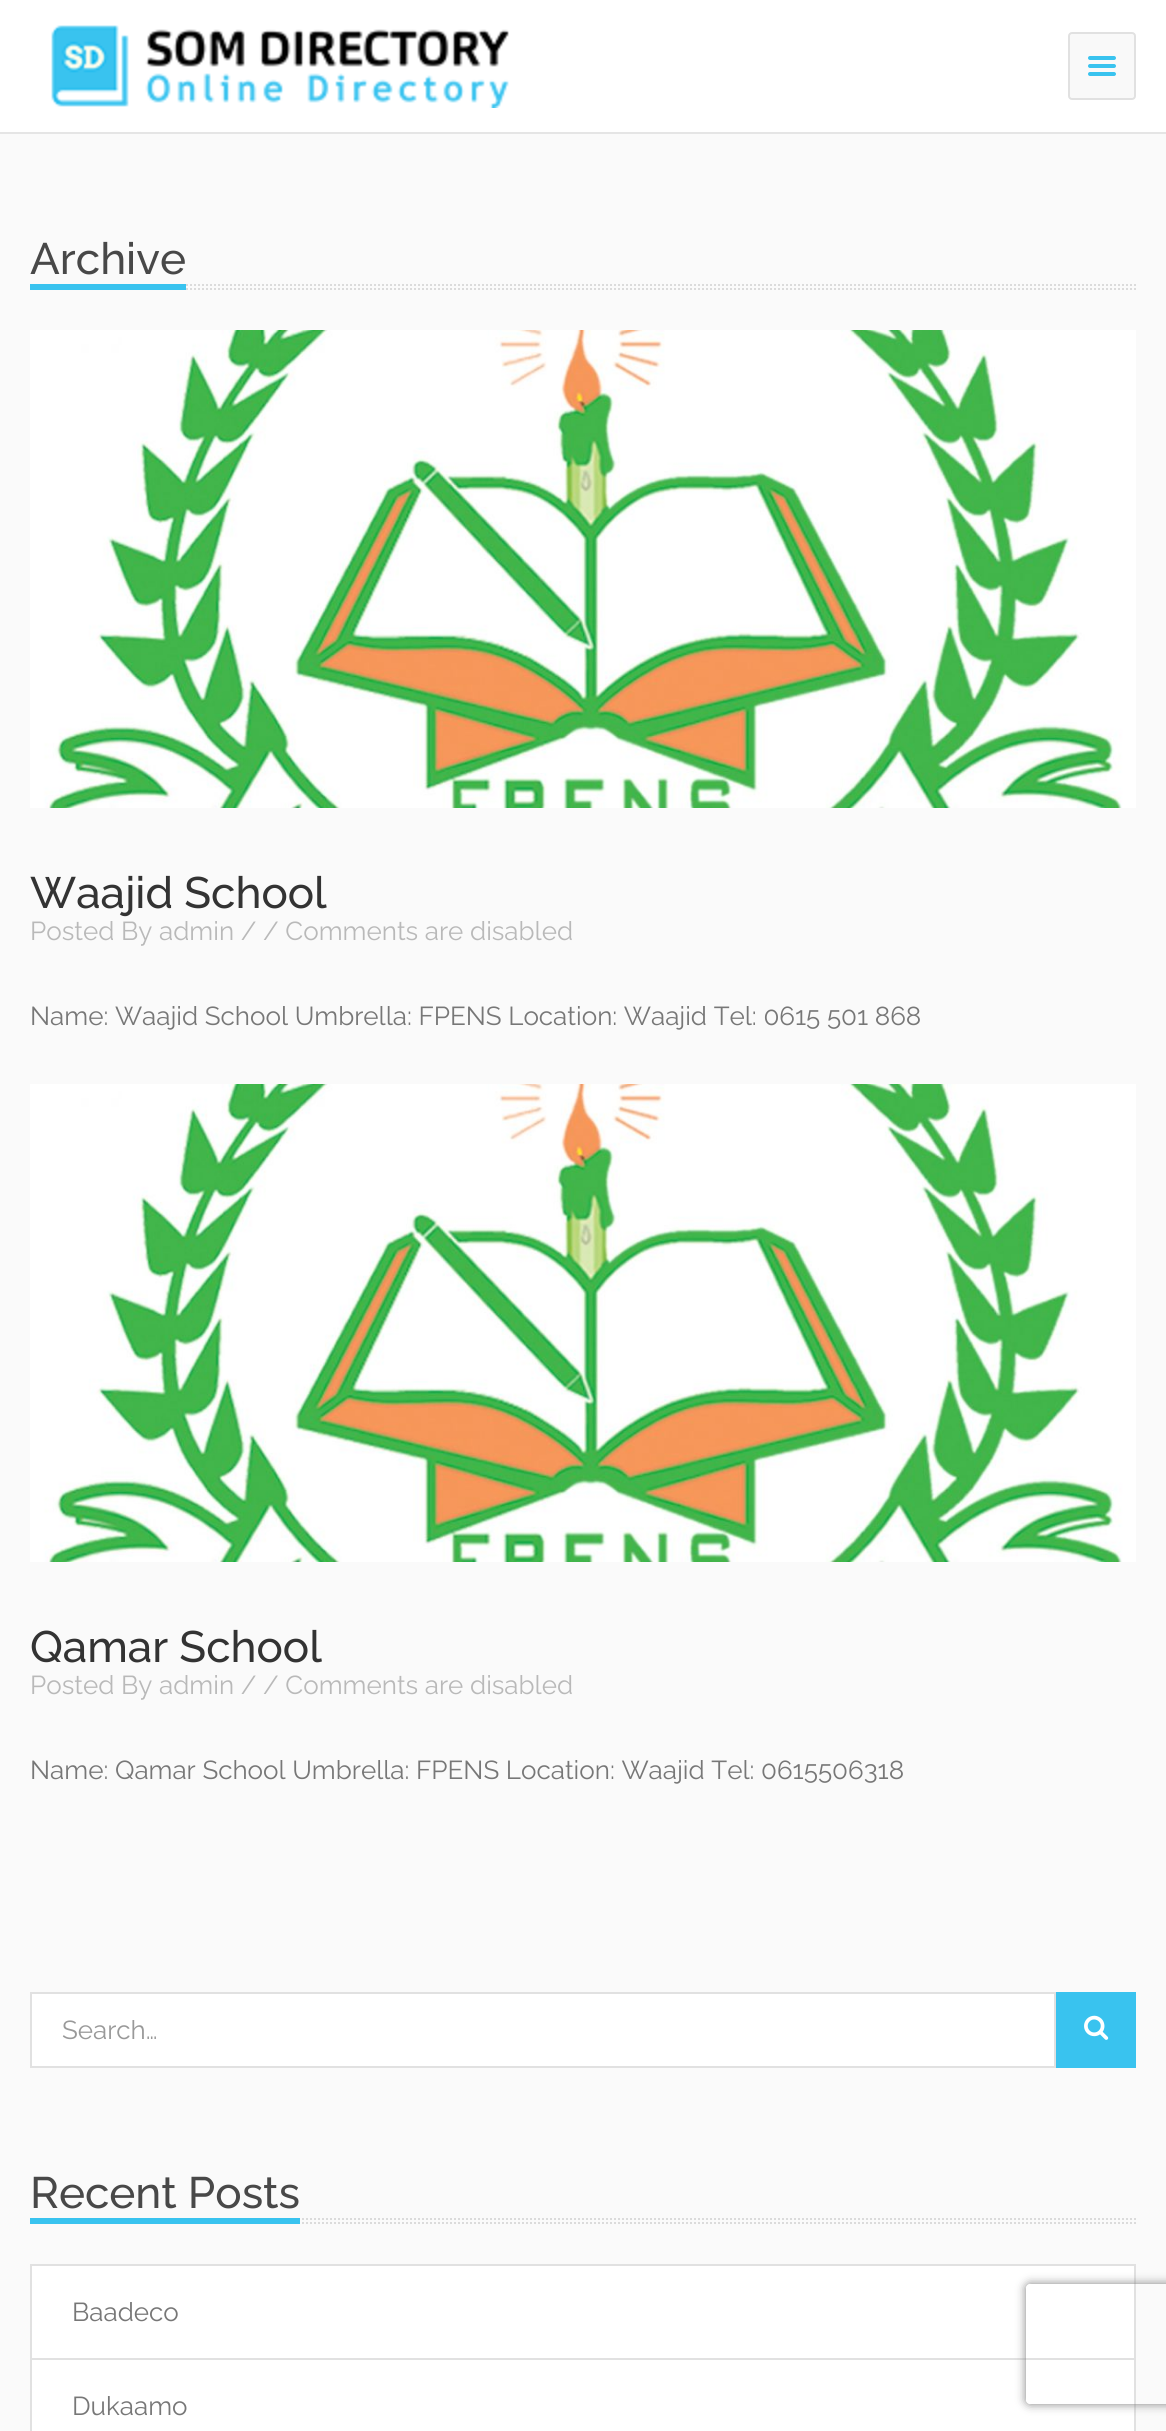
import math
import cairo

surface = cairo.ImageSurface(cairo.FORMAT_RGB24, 1166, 2431)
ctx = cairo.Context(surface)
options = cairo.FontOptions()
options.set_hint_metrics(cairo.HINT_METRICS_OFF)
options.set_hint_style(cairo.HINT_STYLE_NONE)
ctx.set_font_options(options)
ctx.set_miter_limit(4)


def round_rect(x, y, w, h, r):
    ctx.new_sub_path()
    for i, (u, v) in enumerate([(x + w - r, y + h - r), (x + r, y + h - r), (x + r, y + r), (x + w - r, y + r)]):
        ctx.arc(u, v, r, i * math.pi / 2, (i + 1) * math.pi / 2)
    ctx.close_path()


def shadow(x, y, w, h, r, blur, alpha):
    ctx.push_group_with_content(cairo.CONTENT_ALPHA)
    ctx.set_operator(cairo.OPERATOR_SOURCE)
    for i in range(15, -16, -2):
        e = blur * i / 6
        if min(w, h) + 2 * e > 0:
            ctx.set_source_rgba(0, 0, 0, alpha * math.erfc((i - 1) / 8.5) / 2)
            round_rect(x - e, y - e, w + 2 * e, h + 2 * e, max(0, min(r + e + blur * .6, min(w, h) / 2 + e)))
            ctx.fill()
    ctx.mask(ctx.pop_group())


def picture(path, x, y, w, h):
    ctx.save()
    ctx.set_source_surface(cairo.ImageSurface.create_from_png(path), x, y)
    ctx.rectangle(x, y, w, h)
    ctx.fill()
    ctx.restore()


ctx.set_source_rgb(0.98, 0.98, 0.98)
ctx.paint()
ctx.set_source_rgb(1, 1, 1)
ctx.rectangle(0, 0, 1166, 132)
ctx.fill()
ctx.set_source_rgb(0.898, 0.898, 0.898)
ctx.rectangle(0, 132, 1166, 2)
ctx.fill()
picture("img1.png", 51, 25, 458, 83)
ctx.set_source_rgb(0.976, 0.976, 0.976)
round_rect(1069, 33, 66, 66, 3)
ctx.fill_preserve()
ctx.set_source_rgb(0.882, 0.882, 0.882)
ctx.stroke()
ctx.set_source_rgb(0.224, 0.765, 0.937)
round_rect(1088, 56, 28, 4, 2)
ctx.fill()
round_rect(1088, 64, 28, 4, 2)
ctx.fill()
round_rect(1088, 72, 28, 4, 2)
ctx.fill()
ctx.new_path()
ctx.move_to(30, 285)
ctx.line_to(1136, 285)
ctx.set_source_rgb(0.859, 0.859, 0.859)
ctx.set_dash([2, 2])
ctx.stroke()
ctx.new_path()
ctx.move_to(30, 289)
ctx.line_to(1136, 289)
ctx.stroke()
ctx.set_source_rgb(0.224, 0.765, 0.937)
ctx.rectangle(30, 284, 156, 6)
ctx.fill()
ctx.select_font_face("Raleway Medium")
ctx.set_font_size(44)
ctx.set_source_rgb(0.282, 0.282, 0.282)
ctx.move_to(30, 274)
ctx.show_text("Archive")
picture("img2.png", 30, 330, 1106, 478)
ctx.set_source_rgb(0.2, 0.2, 0.2)
ctx.move_to(30, 908)
ctx.show_text("Waajid School")
ctx.select_font_face("Raleway Thin")
ctx.set_font_size(26)
ctx.set_source_rgb(0.725, 0.725, 0.725)
ctx.move_to(30, 940)
ctx.show_text("Posted By admin / / Comments are disabled")
ctx.set_source_rgb(0.467, 0.467, 0.467)
ctx.move_to(30, 1025)
ctx.show_text("Name: Waajid School Umbrella: FPENS Location: Waajid Tel: 0615 501 868")
picture("img2.png", 30, 1084, 1106, 478)
ctx.select_font_face("Raleway Medium")
ctx.set_font_size(44)
ctx.set_source_rgb(0.2, 0.2, 0.2)
ctx.move_to(30, 1662)
ctx.show_text("Qamar School")
ctx.select_font_face("Raleway Thin")
ctx.set_font_size(26)
ctx.set_source_rgb(0.725, 0.725, 0.725)
ctx.move_to(30, 1694)
ctx.show_text("Posted By admin / / Comments are disabled")
ctx.set_source_rgb(0.467, 0.467, 0.467)
ctx.move_to(30, 1779)
ctx.show_text("Name: Qamar School Umbrella: FPENS Location: Waajid Tel: 0615506318")
ctx.set_source_rgb(1, 1, 1)
ctx.rectangle(31, 1993, 1024, 74)
ctx.fill_preserve()
ctx.set_source_rgb(0.882, 0.882, 0.882)
ctx.set_dash([])
ctx.stroke()
ctx.set_source_rgb(0.6, 0.6, 0.6)
ctx.move_to(62, 2039)
ctx.show_text("Search…")
ctx.set_source_rgb(0.224, 0.765, 0.937)
ctx.rectangle(1056, 1992, 80, 76)
ctx.fill()
picture("img3.png", 1084, 2015, 25, 25)
ctx.new_path()
ctx.move_to(30, 2219)
ctx.line_to(1136, 2219)
ctx.set_source_rgb(0.859, 0.859, 0.859)
ctx.set_dash([2, 2])
ctx.stroke()
ctx.new_path()
ctx.move_to(30, 2223)
ctx.line_to(1136, 2223)
ctx.stroke()
ctx.set_source_rgb(0.224, 0.765, 0.937)
ctx.rectangle(30, 2218, 270, 6)
ctx.fill()
ctx.select_font_face("Raleway Medium")
ctx.set_font_size(44)
ctx.set_source_rgb(0.282, 0.282, 0.282)
ctx.move_to(30, 2208)
ctx.show_text("Recent Posts")
ctx.set_source_rgb(1, 1, 1)
ctx.rectangle(31, 2265, 1104, 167)
ctx.fill_preserve()
ctx.set_source_rgb(0.882, 0.882, 0.882)
ctx.set_dash([])
ctx.stroke()
ctx.rectangle(32, 2358, 1102, 2)
ctx.fill()
ctx.select_font_face("Raleway Thin")
ctx.set_font_size(26)
ctx.set_source_rgb(0.467, 0.467, 0.467)
ctx.move_to(72, 2321)
ctx.show_text("Baadeco")
ctx.move_to(72, 2415)
ctx.show_text("Dukaamo")
ctx.save()
ctx.set_fill_rule(cairo.FILL_RULE_EVEN_ODD)
ctx.new_path()
ctx.move_to(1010, 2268)
ctx.line_to(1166, 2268)
ctx.line_to(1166, 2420)
ctx.line_to(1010, 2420)
ctx.close_path()
ctx.move_to(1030, 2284)
ctx.line_to(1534, 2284)
ctx.curve_to(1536, 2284, 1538, 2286, 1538, 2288)
ctx.line_to(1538, 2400)
ctx.curve_to(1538, 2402, 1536, 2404, 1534, 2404)
ctx.line_to(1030, 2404)
ctx.curve_to(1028, 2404, 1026, 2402, 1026, 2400)
ctx.line_to(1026, 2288)
ctx.curve_to(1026, 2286, 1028, 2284, 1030, 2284)
ctx.close_path()
ctx.clip()
ctx.set_source_rgb(0.502, 0.502, 0.502)
shadow(1026, 2284, 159, 120, 4, 5, 1)
ctx.restore()
surface.write_to_png("page.png")
